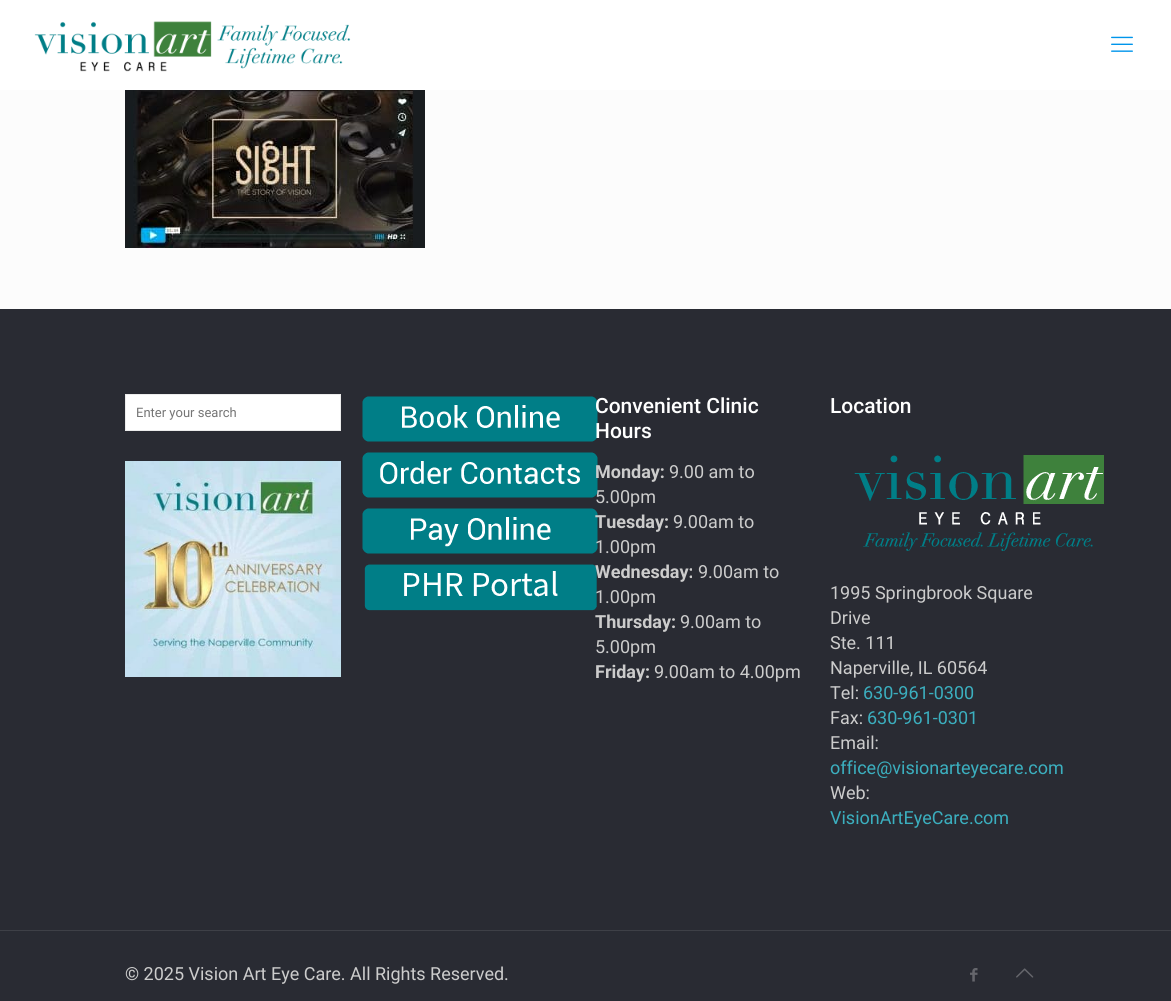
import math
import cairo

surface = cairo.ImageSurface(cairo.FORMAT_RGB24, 1171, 1001)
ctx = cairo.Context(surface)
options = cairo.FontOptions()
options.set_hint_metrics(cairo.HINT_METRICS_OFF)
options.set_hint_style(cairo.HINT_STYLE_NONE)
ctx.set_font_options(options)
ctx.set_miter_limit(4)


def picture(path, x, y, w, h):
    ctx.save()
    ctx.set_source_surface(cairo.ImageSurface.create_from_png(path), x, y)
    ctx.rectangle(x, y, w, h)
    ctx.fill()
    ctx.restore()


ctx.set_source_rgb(0.988, 0.988, 0.988)
ctx.paint()
ctx.set_source_rgb(1, 1, 1)
ctx.rectangle(0, 0, 1171, 90)
ctx.fill()
picture("img1.png", 34, 21, 317, 51)
picture("img2.png", 1111, 36, 22, 16)
picture("img3.png", 125, 90, 300, 158)
ctx.set_source_rgb(0.161, 0.169, 0.2)
ctx.rectangle(0, 309, 1171, 692)
ctx.fill()
ctx.set_source_rgb(1, 1, 1)
ctx.rectangle(125.5, 394.5, 215, 36)
ctx.fill_preserve()
ctx.set_source_rgb(0.922, 0.922, 0.922)
ctx.set_line_width(1)
ctx.stroke()
ctx.select_font_face("Roboto")
ctx.set_font_size(13)
ctx.set_source_rgb(0.459, 0.459, 0.459)
ctx.move_to(136, 417)
ctx.show_text("Enter your search")
picture("img4.png", 125, 461, 216, 216)
picture("img5.png", 362, 396, 236, 46)
picture("img6.png", 362, 452, 236, 46)
picture("img7.png", 362, 508, 236, 46)
picture("img8.png", 364, 564, 233, 47)
ctx.select_font_face("Roboto Medium")
ctx.set_font_size(21)
ctx.set_source_rgb(1, 1, 1)
ctx.move_to(595, 413)
ctx.show_text("Convenient Clinic")
ctx.move_to(595, 438)
ctx.show_text("Hours")
ctx.select_font_face("Roboto", cairo.FONT_SLANT_NORMAL, cairo.FONT_WEIGHT_BOLD)
ctx.set_font_size(18)
ctx.set_source_rgb(0.8, 0.8, 0.8)
ctx.move_to(595, 478)
ctx.show_text("Monday:")
ctx.select_font_face("Roboto")
ctx.move_to(669, 478)
ctx.show_text("9.00 am to")
ctx.move_to(595, 503)
ctx.show_text("5.00pm")
ctx.select_font_face("Roboto", cairo.FONT_SLANT_NORMAL, cairo.FONT_WEIGHT_BOLD)
ctx.move_to(595, 528)
ctx.show_text("Tuesday:")
ctx.select_font_face("Roboto")
ctx.move_to(673, 528)
ctx.show_text("9.00am to")
ctx.move_to(595, 553)
ctx.show_text("1.00pm")
ctx.select_font_face("Roboto", cairo.FONT_SLANT_NORMAL, cairo.FONT_WEIGHT_BOLD)
ctx.move_to(595, 578)
ctx.show_text("Wednesday:")
ctx.select_font_face("Roboto")
ctx.move_to(698, 578)
ctx.show_text("9.00am to")
ctx.move_to(595, 603)
ctx.show_text("1.00pm")
ctx.select_font_face("Roboto", cairo.FONT_SLANT_NORMAL, cairo.FONT_WEIGHT_BOLD)
ctx.move_to(595, 628)
ctx.show_text("Thursday:")
ctx.select_font_face("Roboto")
ctx.move_to(680, 628)
ctx.show_text("9.00am to")
ctx.move_to(595, 653)
ctx.show_text("5.00pm")
ctx.select_font_face("Roboto", cairo.FONT_SLANT_NORMAL, cairo.FONT_WEIGHT_BOLD)
ctx.move_to(595, 678)
ctx.show_text("Friday:")
ctx.select_font_face("Roboto")
ctx.move_to(654, 678)
ctx.show_text("9.00am to 4.00pm")
ctx.select_font_face("Roboto Medium")
ctx.set_font_size(21)
ctx.set_source_rgb(1, 1, 1)
ctx.move_to(830, 413)
ctx.show_text("Location")
picture("img9.png", 854, 455, 250, 96)
ctx.select_font_face("Roboto")
ctx.set_font_size(18)
ctx.set_source_rgb(0.8, 0.8, 0.8)
ctx.move_to(830, 599)
ctx.show_text("1995 Springbrook Square")
ctx.move_to(830, 624)
ctx.show_text("Drive")
ctx.move_to(830, 649)
ctx.show_text("Ste. 111")
ctx.move_to(830, 674)
ctx.show_text("Naperville, IL 60564")
ctx.move_to(830, 699)
ctx.show_text("Tel:")
ctx.set_source_rgb(0.231, 0.686, 0.749)
ctx.move_to(863, 699)
ctx.show_text("630-961-0300")
ctx.set_source_rgb(0.8, 0.8, 0.8)
ctx.move_to(830, 724)
ctx.show_text("Fax:")
ctx.set_source_rgb(0.231, 0.686, 0.749)
ctx.move_to(867, 724)
ctx.show_text("630-961-0301")
ctx.set_source_rgb(0.8, 0.8, 0.8)
ctx.move_to(830, 749)
ctx.show_text("Email:")
ctx.set_source_rgb(0.231, 0.686, 0.749)
ctx.move_to(830, 774)
ctx.show_text("office@visionarteyecare.com")
ctx.set_source_rgb(0.8, 0.8, 0.8)
ctx.move_to(830, 799)
ctx.show_text("Web:")
ctx.set_source_rgb(0.231, 0.686, 0.749)
ctx.move_to(830, 824)
ctx.show_text("VisionArtEyeCare.com")
ctx.set_source_rgb(0.243, 0.251, 0.278)
ctx.rectangle(0, 930, 1171, 1)
ctx.fill()
ctx.set_source_rgb(0.8, 0.8, 0.8)
ctx.move_to(125, 980)
ctx.show_text("© 2025 Vision Art Eye Care. All Rights Reserved.")
picture("img10.png", 970, 968, 8, 14)
picture("img11.png", 1016, 968, 18, 10)
surface.write_to_png("page.png")
